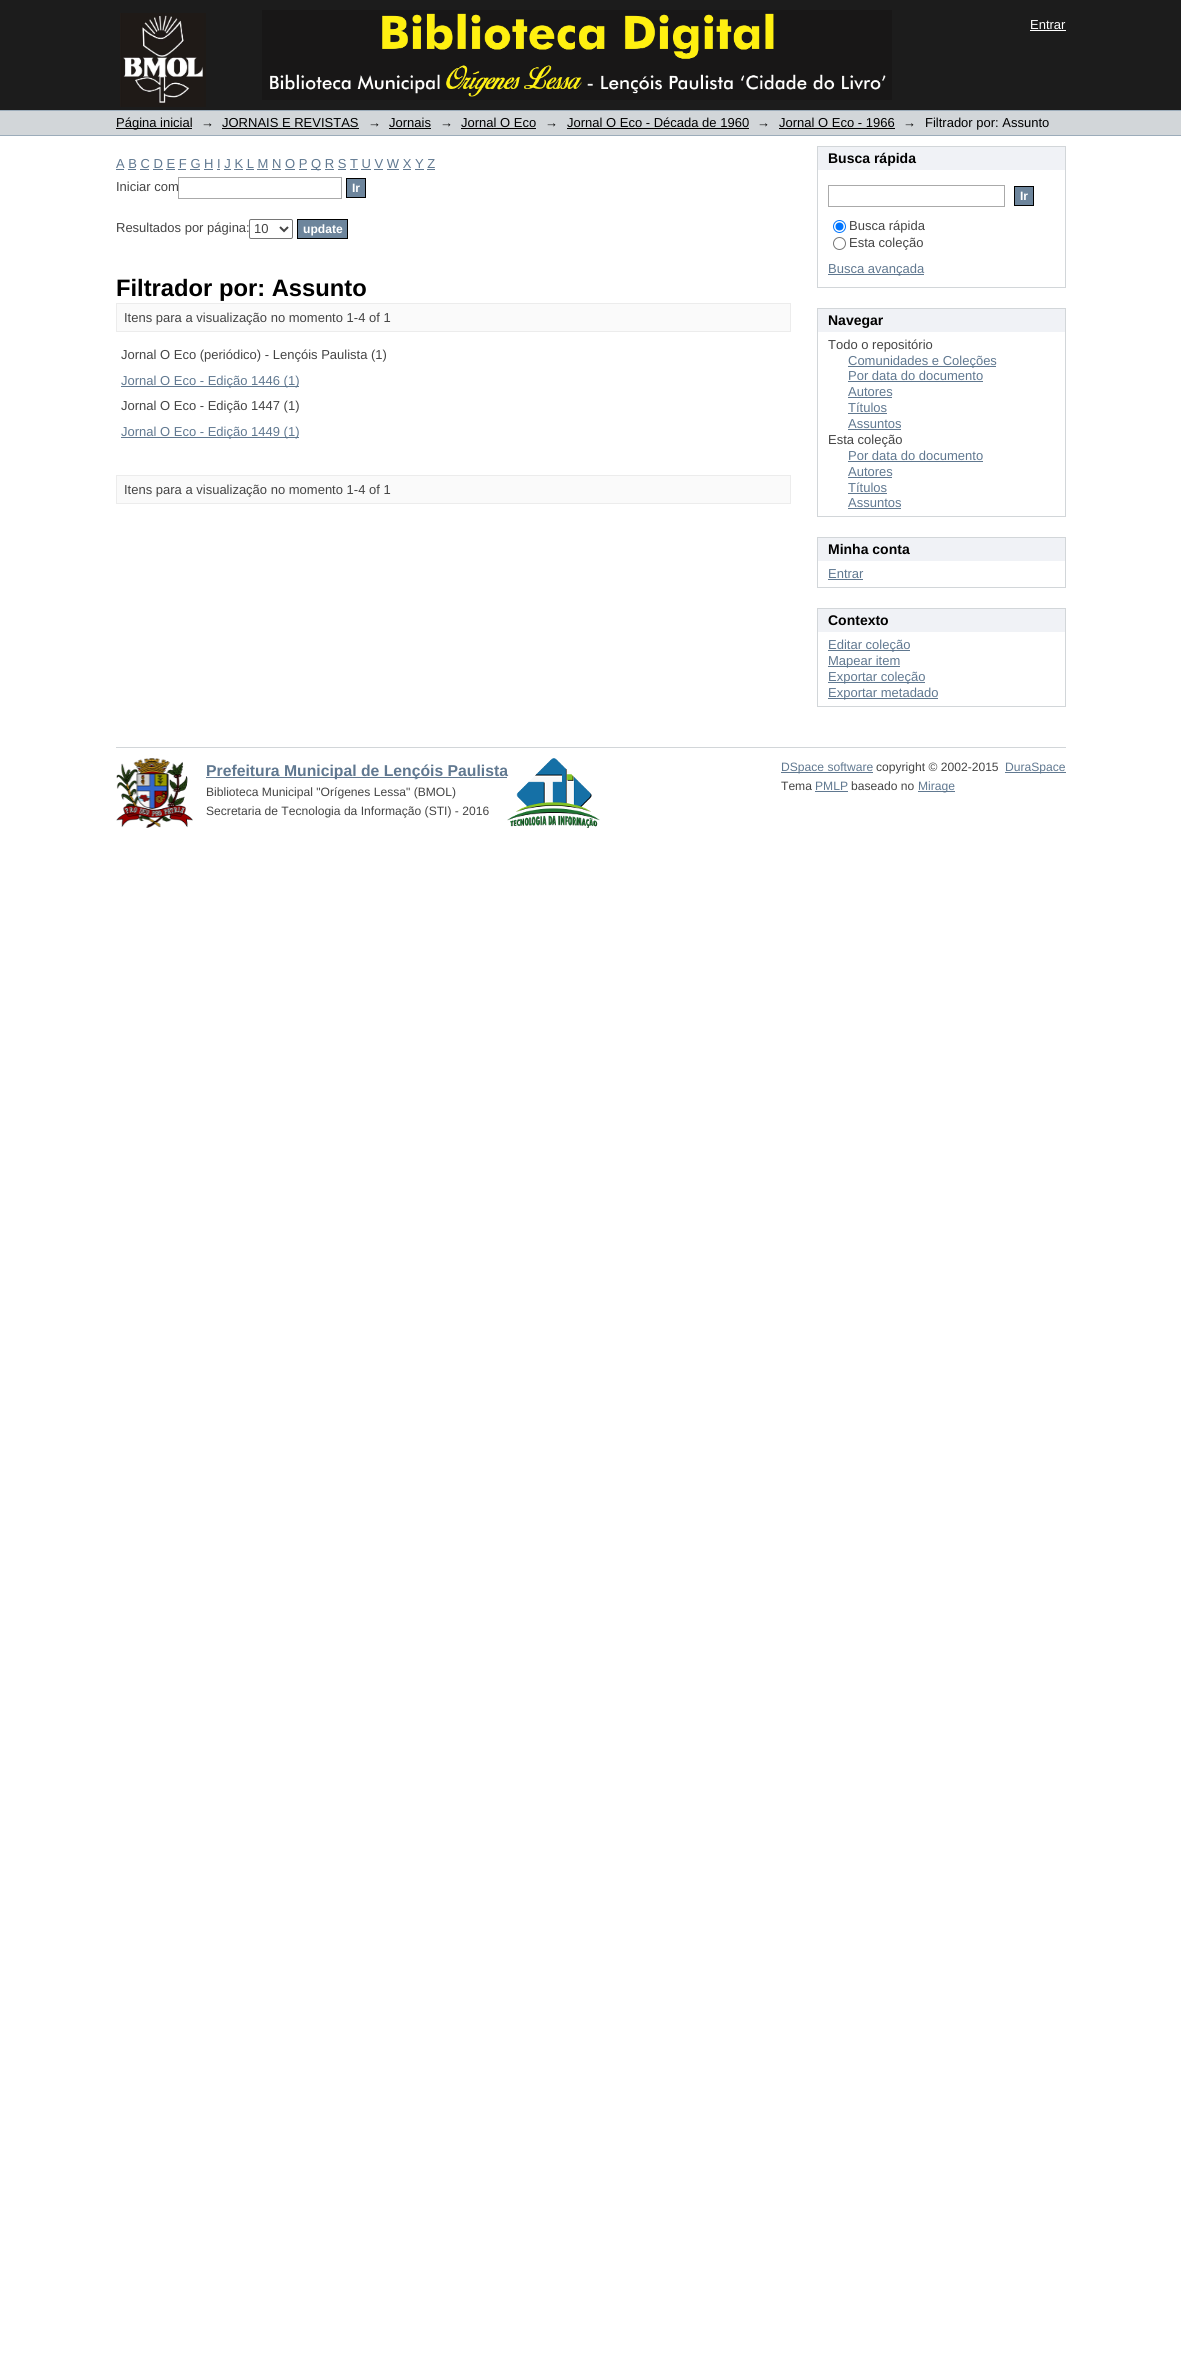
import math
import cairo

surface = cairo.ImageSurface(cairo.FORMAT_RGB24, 1181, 2359)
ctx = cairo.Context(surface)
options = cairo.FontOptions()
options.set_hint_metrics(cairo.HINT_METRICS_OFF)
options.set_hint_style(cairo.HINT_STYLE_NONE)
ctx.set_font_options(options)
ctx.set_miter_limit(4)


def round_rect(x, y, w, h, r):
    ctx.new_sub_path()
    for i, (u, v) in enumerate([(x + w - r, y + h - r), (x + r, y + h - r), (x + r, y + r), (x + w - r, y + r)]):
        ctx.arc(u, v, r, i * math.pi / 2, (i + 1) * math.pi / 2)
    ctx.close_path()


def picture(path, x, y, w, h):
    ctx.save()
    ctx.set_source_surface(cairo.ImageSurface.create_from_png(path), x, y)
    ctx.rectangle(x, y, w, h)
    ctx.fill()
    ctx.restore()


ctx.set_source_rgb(1, 1, 1)
ctx.paint()
ctx.set_source_rgb(0.11, 0.11, 0.11)
ctx.rectangle(0, 0, 1181, 110)
ctx.fill()
picture("img1.png", 120, 13, 86, 94)
picture("img2.png", 262, 10, 630, 90)
ctx.select_font_face("Liberation Sans")
ctx.set_font_size(13)
ctx.set_source_rgb(1, 1, 1)
ctx.move_to(1030, 29)
ctx.show_text("Entrar")
ctx.rectangle(1030, 30, 36, 1)
ctx.fill()
ctx.set_source_rgb(0.824, 0.839, 0.851)
ctx.rectangle(0, 111, 1181, 24)
ctx.fill()
ctx.set_source_rgb(0.612, 0.675, 0.729)
ctx.rectangle(0, 110, 1181, 1)
ctx.fill()
ctx.rectangle(0, 135, 1181, 1)
ctx.fill()
ctx.set_source_rgb(0, 0, 0)
ctx.rectangle(116, 128, 76, 1)
ctx.fill()
ctx.move_to(116, 127)
ctx.show_text("Página inicial")
ctx.move_to(201, 127)
ctx.show_text("→")
ctx.move_to(222, 127)
ctx.show_text("JORNAIS E REVISTAS")
ctx.rectangle(222, 128, 137, 1)
ctx.fill()
ctx.move_to(368, 127)
ctx.show_text("→")
ctx.move_to(389, 127)
ctx.show_text("Jornais")
ctx.rectangle(389, 128, 42, 1)
ctx.fill()
ctx.move_to(440, 127)
ctx.show_text("→")
ctx.move_to(461, 127)
ctx.show_text("Jornal O Eco")
ctx.rectangle(461, 128, 75, 1)
ctx.fill()
ctx.move_to(545, 127)
ctx.show_text("→")
ctx.move_to(567, 127)
ctx.show_text("Jornal O Eco - Década de 1960")
ctx.rectangle(567, 128, 182, 1)
ctx.fill()
ctx.move_to(757, 127)
ctx.show_text("→")
ctx.move_to(779, 127)
ctx.show_text("Jornal O Eco - 1966")
ctx.rectangle(779, 128, 116, 1)
ctx.fill()
ctx.move_to(903, 127)
ctx.show_text("→")
ctx.move_to(925, 127)
ctx.show_text("Filtrador por: Assunto")
ctx.set_source_rgb(0.376, 0.471, 0.565)
ctx.move_to(116, 168)
ctx.show_text("A B C D E F G H I J K L M N O P")
ctx.rectangle(116, 169, 8, 1)
ctx.fill()
ctx.rectangle(311, 169, 10, 1)
ctx.fill()
ctx.move_to(311, 168)
ctx.show_text("Q R S T U V W X Y Z")
ctx.rectangle(128, 169, 8, 1)
ctx.fill()
ctx.rectangle(140, 169, 9, 1)
ctx.fill()
ctx.rectangle(153, 169, 10, 1)
ctx.fill()
ctx.rectangle(166, 169, 9, 1)
ctx.fill()
ctx.rectangle(178, 169, 8, 1)
ctx.fill()
ctx.rectangle(190, 169, 10, 1)
ctx.fill()
ctx.rectangle(204, 169, 9, 1)
ctx.fill()
ctx.rectangle(217, 169, 3, 1)
ctx.fill()
ctx.rectangle(224, 169, 7, 1)
ctx.fill()
ctx.rectangle(234, 169, 9, 1)
ctx.fill()
ctx.rectangle(246, 169, 8, 1)
ctx.fill()
ctx.rectangle(257, 169, 11, 1)
ctx.fill()
ctx.rectangle(272, 169, 9, 1)
ctx.fill()
ctx.rectangle(285, 169, 10, 1)
ctx.fill()
ctx.rectangle(299, 169, 8, 1)
ctx.fill()
ctx.rectangle(325, 169, 9, 1)
ctx.fill()
ctx.rectangle(338, 169, 8, 1)
ctx.fill()
ctx.rectangle(350, 169, 8, 1)
ctx.fill()
ctx.rectangle(361, 169, 10, 1)
ctx.fill()
ctx.rectangle(374, 169, 9, 1)
ctx.fill()
ctx.rectangle(387, 169, 12, 1)
ctx.fill()
ctx.rectangle(403, 169, 8, 1)
ctx.fill()
ctx.rectangle(415, 169, 9, 1)
ctx.fill()
ctx.rectangle(427, 169, 8, 1)
ctx.fill()
ctx.set_source_rgb(0.267, 0.267, 0.267)
ctx.move_to(116, 191)
ctx.show_text("Iniciar com")
ctx.rectangle(178.5, 177.5, 163, 21)
ctx.set_source_rgb(0.667, 0.667, 0.667)
ctx.set_line_width(1)
ctx.stroke()
ctx.set_source_rgb(0.427, 0.522, 0.612)
ctx.rectangle(346.5, 178.5, 19, 19)
ctx.fill_preserve()
ctx.set_source_rgb(0, 0, 0)
ctx.stroke()
ctx.select_font_face("Liberation Sans", cairo.FONT_SLANT_NORMAL, cairo.FONT_WEIGHT_BOLD)
ctx.set_font_size(12.1)
ctx.set_source_rgb(1, 1, 1)
ctx.move_to(352, 192)
ctx.show_text("Ir")
ctx.select_font_face("Liberation Sans")
ctx.set_font_size(13)
ctx.set_source_rgb(0.267, 0.267, 0.267)
ctx.move_to(116, 232)
ctx.show_text("Resultados por página:")
round_rect(249.5, 219.5, 43, 19, 1.5)
ctx.set_source_rgb(0.463, 0.463, 0.463)
ctx.stroke()
ctx.new_path()
ctx.move_to(280, 227)
ctx.line_to(284, 231)
ctx.line_to(288, 227)
ctx.set_source_rgb(0.267, 0.267, 0.267)
ctx.set_line_width(2)
ctx.stroke()
ctx.move_to(254, 233)
ctx.show_text("10")
ctx.set_source_rgb(0.427, 0.522, 0.612)
ctx.rectangle(297.5, 219.5, 50, 19)
ctx.fill_preserve()
ctx.set_source_rgb(0, 0, 0)
ctx.set_line_width(1)
ctx.stroke()
ctx.select_font_face("Liberation Sans", cairo.FONT_SLANT_NORMAL, cairo.FONT_WEIGHT_BOLD)
ctx.set_font_size(12.1)
ctx.set_source_rgb(1, 1, 1)
ctx.move_to(303, 233)
ctx.show_text("update")
ctx.set_font_size(23.75)
ctx.set_source_rgb(0, 0, 0)
ctx.move_to(116, 296)
ctx.show_text("Filtrador por: Assunto")
ctx.set_source_rgb(0.98, 0.98, 0.98)
ctx.rectangle(116.5, 303.5, 674, 28)
ctx.fill_preserve()
ctx.set_source_rgb(0.922, 0.922, 0.922)
ctx.stroke()
ctx.select_font_face("Liberation Sans")
ctx.set_font_size(13)
ctx.set_source_rgb(0.267, 0.267, 0.267)
ctx.move_to(124, 322)
ctx.show_text("Itens para a visualização no momento 1-4 of 1")
ctx.move_to(121, 359)
ctx.show_text("Jornal O Eco (periódico) - Lençóis Paulista (1)")
ctx.set_source_rgb(0.376, 0.471, 0.565)
ctx.rectangle(121, 386, 178, 1)
ctx.fill()
ctx.move_to(121, 385)
ctx.show_text("Jornal O Eco - Edição 1446 (1)")
ctx.set_source_rgb(0.267, 0.267, 0.267)
ctx.move_to(121, 410)
ctx.show_text("Jornal O Eco - Edição 1447 (1)")
ctx.set_source_rgb(0.376, 0.471, 0.565)
ctx.rectangle(121, 437, 178, 1)
ctx.fill()
ctx.move_to(121, 436)
ctx.show_text("Jornal O Eco - Edição 1449 (1)")
ctx.set_source_rgb(0.98, 0.98, 0.98)
ctx.rectangle(116.5, 475.5, 674, 28)
ctx.fill_preserve()
ctx.set_source_rgb(0.922, 0.922, 0.922)
ctx.stroke()
ctx.set_source_rgb(0.267, 0.267, 0.267)
ctx.move_to(124, 494)
ctx.show_text("Itens para a visualização no momento 1-4 of 1")
ctx.set_source_rgb(0.941, 0.949, 0.961)
ctx.rectangle(818, 147, 247, 23)
ctx.fill()
ctx.set_source_rgb(0.824, 0.839, 0.851)
ctx.rectangle(817, 146, 249, 1)
ctx.fill()
ctx.rectangle(1065, 146, 1, 142)
ctx.fill()
ctx.rectangle(817, 146, 1, 24)
ctx.fill()
ctx.select_font_face("Liberation Sans", cairo.FONT_SLANT_NORMAL, cairo.FONT_WEIGHT_BOLD)
ctx.set_font_size(14)
ctx.set_source_rgb(0, 0, 0)
ctx.move_to(828, 163)
ctx.show_text("Busca rápida")
ctx.set_source_rgb(0.824, 0.839, 0.851)
ctx.rectangle(817, 287, 249, 1)
ctx.fill()
ctx.rectangle(817, 170, 1, 118)
ctx.fill()
ctx.rectangle(828.5, 185.5, 176, 21)
ctx.set_source_rgb(0.667, 0.667, 0.667)
ctx.stroke()
ctx.set_source_rgb(0.427, 0.522, 0.612)
ctx.rectangle(1014.5, 186.5, 19, 19)
ctx.fill_preserve()
ctx.set_source_rgb(0, 0, 0)
ctx.stroke()
ctx.set_font_size(12.1)
ctx.set_source_rgb(1, 1, 1)
ctx.move_to(1020, 200)
ctx.show_text("Ir")
ctx.new_path()
ctx.arc(839.5, 226.5, 6, 0, 2 * math.pi)
ctx.set_source_rgb(0, 0.459, 1)
ctx.stroke()
ctx.arc(839.5, 226.5, 4, 0, 2 * math.pi)
ctx.fill()
ctx.select_font_face("Liberation Sans")
ctx.set_font_size(13)
ctx.set_source_rgb(0.267, 0.267, 0.267)
ctx.move_to(849, 230)
ctx.show_text("Busca rápida")
ctx.new_path()
ctx.arc(839.5, 243.5, 6, 0, 2 * math.pi)
ctx.set_source_rgb(0.463, 0.463, 0.463)
ctx.stroke()
ctx.set_source_rgb(0.267, 0.267, 0.267)
ctx.move_to(849, 247)
ctx.show_text("Esta coleção")
ctx.set_source_rgb(0.376, 0.471, 0.565)
ctx.rectangle(828, 274, 96, 1)
ctx.fill()
ctx.move_to(828, 273)
ctx.show_text("Busca avançada")
ctx.set_source_rgb(0.941, 0.949, 0.961)
ctx.rectangle(818, 309, 247, 23)
ctx.fill()
ctx.set_source_rgb(0.824, 0.839, 0.851)
ctx.rectangle(817, 308, 249, 1)
ctx.fill()
ctx.rectangle(1065, 308, 1, 209)
ctx.fill()
ctx.rectangle(817, 308, 1, 24)
ctx.fill()
ctx.select_font_face("Liberation Sans", cairo.FONT_SLANT_NORMAL, cairo.FONT_WEIGHT_BOLD)
ctx.set_font_size(14)
ctx.set_source_rgb(0, 0, 0)
ctx.move_to(828, 325)
ctx.show_text("Navegar")
ctx.set_source_rgb(0.824, 0.839, 0.851)
ctx.rectangle(817, 516, 249, 1)
ctx.fill()
ctx.rectangle(817, 332, 1, 185)
ctx.fill()
ctx.select_font_face("Liberation Sans")
ctx.set_font_size(13)
ctx.set_source_rgb(0.267, 0.267, 0.267)
ctx.move_to(828, 349)
ctx.show_text("Todo o repositório")
ctx.set_source_rgb(0.376, 0.471, 0.565)
ctx.rectangle(848, 366, 148, 1)
ctx.fill()
ctx.move_to(848, 365)
ctx.show_text("Comunidades e Coleções")
ctx.move_to(848, 380)
ctx.show_text("Por data do documento")
ctx.rectangle(848, 381, 135, 1)
ctx.fill()
ctx.move_to(848, 396)
ctx.show_text("Autores")
ctx.rectangle(848, 397, 44, 1)
ctx.fill()
ctx.move_to(848, 412)
ctx.show_text("Títulos")
ctx.rectangle(848, 413, 39, 1)
ctx.fill()
ctx.move_to(848, 428)
ctx.show_text("Assuntos")
ctx.rectangle(848, 429, 53, 1)
ctx.fill()
ctx.set_source_rgb(0.267, 0.267, 0.267)
ctx.move_to(828, 444)
ctx.show_text("Esta coleção")
ctx.set_source_rgb(0.376, 0.471, 0.565)
ctx.move_to(848, 460)
ctx.show_text("Por data do documento")
ctx.rectangle(848, 461, 135, 1)
ctx.fill()
ctx.move_to(848, 476)
ctx.show_text("Autores")
ctx.rectangle(848, 477, 44, 1)
ctx.fill()
ctx.move_to(848, 492)
ctx.show_text("Títulos")
ctx.rectangle(848, 493, 39, 1)
ctx.fill()
ctx.move_to(848, 507)
ctx.show_text("Assuntos")
ctx.rectangle(848, 508, 53, 1)
ctx.fill()
ctx.set_source_rgb(0.941, 0.949, 0.961)
ctx.rectangle(818, 538, 247, 23)
ctx.fill()
ctx.set_source_rgb(0.824, 0.839, 0.851)
ctx.rectangle(817, 537, 249, 1)
ctx.fill()
ctx.rectangle(1065, 537, 1, 51)
ctx.fill()
ctx.rectangle(817, 537, 1, 24)
ctx.fill()
ctx.select_font_face("Liberation Sans", cairo.FONT_SLANT_NORMAL, cairo.FONT_WEIGHT_BOLD)
ctx.set_font_size(14)
ctx.set_source_rgb(0, 0, 0)
ctx.move_to(828, 554)
ctx.show_text("Minha conta")
ctx.set_source_rgb(0.824, 0.839, 0.851)
ctx.rectangle(817, 587, 249, 1)
ctx.fill()
ctx.rectangle(817, 561, 1, 27)
ctx.fill()
ctx.select_font_face("Liberation Sans")
ctx.set_font_size(13)
ctx.set_source_rgb(0.376, 0.471, 0.565)
ctx.move_to(828, 578)
ctx.show_text("Entrar")
ctx.rectangle(828, 579, 35, 1)
ctx.fill()
ctx.set_source_rgb(0.941, 0.949, 0.961)
ctx.rectangle(818, 609, 247, 23)
ctx.fill()
ctx.set_source_rgb(0.824, 0.839, 0.851)
ctx.rectangle(817, 608, 249, 1)
ctx.fill()
ctx.rectangle(1065, 608, 1, 99)
ctx.fill()
ctx.rectangle(817, 608, 1, 24)
ctx.fill()
ctx.select_font_face("Liberation Sans", cairo.FONT_SLANT_NORMAL, cairo.FONT_WEIGHT_BOLD)
ctx.set_font_size(14)
ctx.set_source_rgb(0, 0, 0)
ctx.move_to(828, 625)
ctx.show_text("Contexto")
ctx.set_source_rgb(0.824, 0.839, 0.851)
ctx.rectangle(817, 706, 249, 1)
ctx.fill()
ctx.rectangle(817, 632, 1, 75)
ctx.fill()
ctx.set_source_rgb(0.376, 0.471, 0.565)
ctx.rectangle(828, 650, 82, 1)
ctx.fill()
ctx.select_font_face("Liberation Sans")
ctx.set_font_size(13)
ctx.move_to(828, 649)
ctx.show_text("Editar coleção")
ctx.rectangle(828, 666, 72, 1)
ctx.fill()
ctx.move_to(828, 665)
ctx.show_text("Mapear item")
ctx.rectangle(828, 682, 97, 1)
ctx.fill()
ctx.move_to(828, 681)
ctx.show_text("Exportar coleção")
ctx.rectangle(828, 698, 110, 1)
ctx.fill()
ctx.move_to(828, 697)
ctx.show_text("Exportar metadado")
ctx.set_source_rgb(0.824, 0.839, 0.851)
ctx.rectangle(116, 747, 950, 1)
ctx.fill()
picture("img3.png", 116, 758, 77, 70)
ctx.set_source_rgb(0.376, 0.471, 0.565)
ctx.rectangle(206, 777, 301, 1)
ctx.fill()
ctx.select_font_face("Liberation Sans", cairo.FONT_SLANT_NORMAL, cairo.FONT_WEIGHT_BOLD)
ctx.set_font_size(15.75)
ctx.move_to(206, 776)
ctx.show_text("Prefeitura Municipal de Lençóis Paulista")
ctx.select_font_face("Liberation Sans")
ctx.set_font_size(12.1)
ctx.set_source_rgb(0.267, 0.267, 0.267)
ctx.move_to(206, 796)
ctx.show_text("Biblioteca Municipal \"Orígenes Lessa\" (BMOL)")
ctx.move_to(206, 815)
ctx.show_text("Secretaria de Tecnologia da Informação (STI) - 2016")
picture("img4.png", 507, 758, 93, 70)
ctx.set_source_rgb(0.376, 0.471, 0.565)
ctx.rectangle(781, 772, 92, 1)
ctx.fill()
ctx.move_to(781, 771)
ctx.show_text("DSpace software")
ctx.set_source_rgb(0.267, 0.267, 0.267)
ctx.move_to(876, 771)
ctx.show_text("copyright © 2002-2015")
ctx.set_source_rgb(0.376, 0.471, 0.565)
ctx.rectangle(1005, 772, 61, 1)
ctx.fill()
ctx.move_to(1005, 771)
ctx.show_text("DuraSpace")
ctx.set_source_rgb(0.267, 0.267, 0.267)
ctx.move_to(781, 790)
ctx.show_text("Tema")
ctx.set_source_rgb(0.376, 0.471, 0.565)
ctx.move_to(815, 790)
ctx.show_text("PMLP")
ctx.rectangle(815, 791, 33, 1)
ctx.fill()
ctx.set_source_rgb(0.267, 0.267, 0.267)
ctx.move_to(851, 790)
ctx.show_text("baseado no")
ctx.set_source_rgb(0.376, 0.471, 0.565)
ctx.rectangle(918, 791, 37, 1)
ctx.fill()
ctx.move_to(918, 790)
ctx.show_text("Mirage")
surface.write_to_png("page.png")
